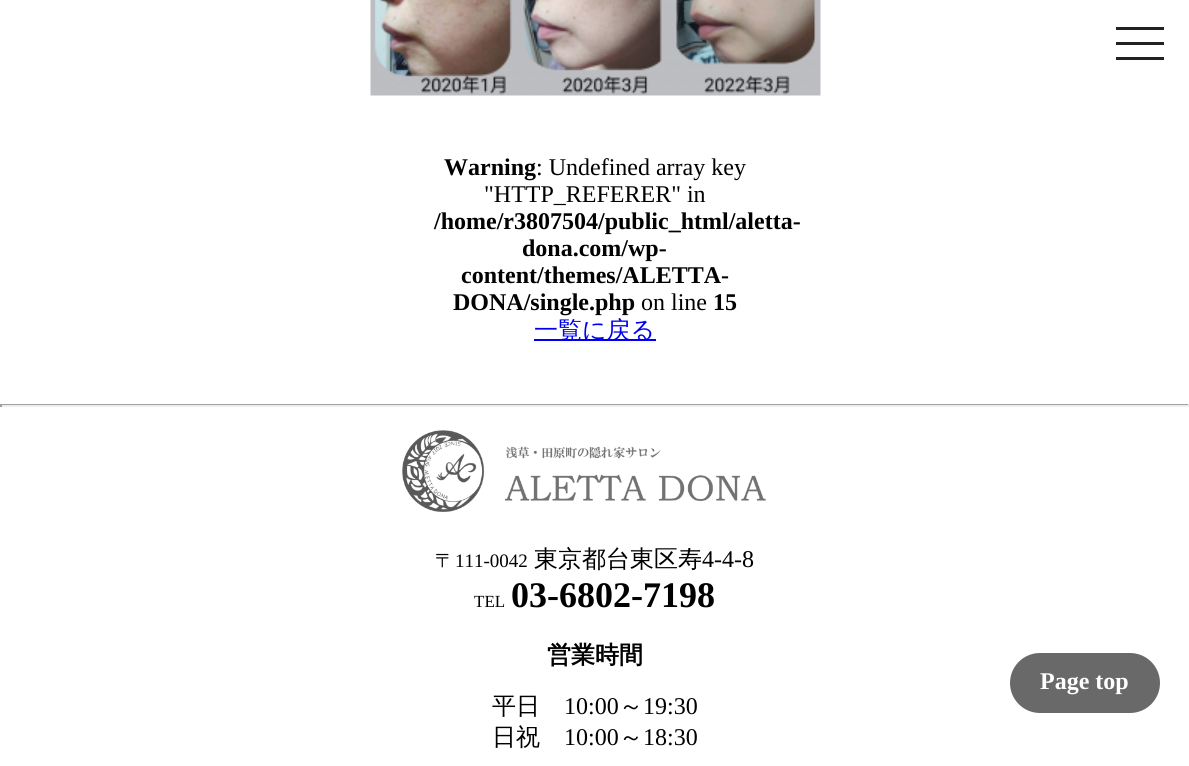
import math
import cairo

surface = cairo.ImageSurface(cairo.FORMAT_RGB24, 1189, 766)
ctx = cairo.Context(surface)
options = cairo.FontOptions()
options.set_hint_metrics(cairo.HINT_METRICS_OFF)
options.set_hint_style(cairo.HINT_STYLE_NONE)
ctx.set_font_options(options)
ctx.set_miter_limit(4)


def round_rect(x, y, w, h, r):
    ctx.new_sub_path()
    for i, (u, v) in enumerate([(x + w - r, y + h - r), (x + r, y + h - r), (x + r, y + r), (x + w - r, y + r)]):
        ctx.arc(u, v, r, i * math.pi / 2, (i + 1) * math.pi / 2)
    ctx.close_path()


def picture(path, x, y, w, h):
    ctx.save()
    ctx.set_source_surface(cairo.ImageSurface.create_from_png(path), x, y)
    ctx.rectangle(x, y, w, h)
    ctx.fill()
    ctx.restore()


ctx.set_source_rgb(1, 1, 1)
ctx.paint()
ctx.set_source_rgb(0.133, 0.133, 0.133)
ctx.rectangle(1116, 42, 48, 3)
ctx.fill()
ctx.rectangle(1116, 27, 48, 3)
ctx.fill()
ctx.rectangle(1116, 57, 48, 3)
ctx.fill()
picture("img1.png", 370, 0, 451, 96)
ctx.select_font_face("Liberation Serif", cairo.FONT_SLANT_NORMAL, cairo.FONT_WEIGHT_BOLD)
ctx.set_font_size(24)
ctx.set_source_rgb(0, 0, 0)
ctx.move_to(444, 175)
ctx.show_text("Warning")
ctx.select_font_face("Liberation Serif")
ctx.move_to(536, 175)
ctx.show_text(": Undefined array key")
ctx.move_to(484, 202)
ctx.show_text("\"HTTP_REFERER\" in")
ctx.select_font_face("Liberation Serif", cairo.FONT_SLANT_NORMAL, cairo.FONT_WEIGHT_BOLD)
ctx.move_to(434, 229)
ctx.show_text("/home/r3807504/public_html/aletta-")
ctx.move_to(522, 256)
ctx.show_text("dona.com/wp-")
ctx.move_to(461, 283)
ctx.show_text("content/themes/ALETTA-")
ctx.move_to(453, 310)
ctx.show_text("DONA/single.php")
ctx.select_font_face("Liberation Serif")
ctx.move_to(641, 310)
ctx.show_text("on line")
ctx.select_font_face("Liberation Serif", cairo.FONT_SLANT_NORMAL, cairo.FONT_WEIGHT_BOLD)
ctx.move_to(713, 310)
ctx.show_text("15")
ctx.set_source_rgb(0, 0, 0.933)
ctx.rectangle(534, 339, 122, 2)
ctx.fill()
ctx.select_font_face("WenQuanYi Zen Hei Medium")
ctx.move_to(534, 338)
ctx.show_text("一覧に戻る")
ctx.set_source_rgb(0.624, 0.624, 0.624)
ctx.rectangle(0, 404, 1189, 1)
ctx.fill()
ctx.set_source_rgb(0.933, 0.933, 0.933)
ctx.rectangle(1188, 404, 1, 3)
ctx.fill()
ctx.rectangle(0, 405, 1189, 2)
ctx.fill()
ctx.set_source_rgb(0.624, 0.624, 0.624)
ctx.rectangle(0, 404, 2, 3)
ctx.fill()
picture("img2.png", 402, 430, 364, 82)
ctx.set_font_size(19)
ctx.set_source_rgb(0, 0, 0)
ctx.move_to(435, 567)
ctx.show_text("〒")
ctx.select_font_face("Liberation Serif")
ctx.move_to(455, 567)
ctx.show_text("111-0042")
ctx.select_font_face("WenQuanYi Zen Hei Medium")
ctx.set_font_size(24)
ctx.move_to(534, 567)
ctx.show_text("東京都台東区寿")
ctx.select_font_face("Liberation Serif")
ctx.move_to(702, 567)
ctx.show_text("4-4-8")
ctx.set_font_size(17)
ctx.move_to(474, 607)
ctx.show_text("TEL")
ctx.select_font_face("Liberation Serif", cairo.FONT_SLANT_NORMAL, cairo.FONT_WEIGHT_BOLD)
ctx.set_font_size(36)
ctx.move_to(511, 607)
ctx.show_text("03-6802-7198")
ctx.select_font_face("WenQuanYi Zen Hei", cairo.FONT_SLANT_NORMAL, cairo.FONT_WEIGHT_BOLD)
ctx.set_font_size(24)
ctx.move_to(547, 663)
ctx.show_text("営業時間")
ctx.select_font_face("WenQuanYi Zen Hei Medium")
ctx.move_to(492, 714)
ctx.show_text("平日")
ctx.select_font_face("Liberation Serif")
ctx.move_to(564, 714)
ctx.show_text("10:00")
ctx.select_font_face("WenQuanYi Zen Hei Medium")
ctx.move_to(619, 714)
ctx.show_text("～")
ctx.select_font_face("Liberation Serif")
ctx.move_to(643, 714)
ctx.show_text("19:30")
ctx.select_font_face("WenQuanYi Zen Hei Medium")
ctx.move_to(492, 745)
ctx.show_text("日祝")
ctx.select_font_face("Liberation Serif")
ctx.move_to(564, 745)
ctx.show_text("10:00")
ctx.select_font_face("WenQuanYi Zen Hei Medium")
ctx.move_to(619, 745)
ctx.show_text("～")
ctx.select_font_face("Liberation Serif")
ctx.move_to(643, 745)
ctx.show_text("18:30")
ctx.set_source_rgb(0.412, 0.412, 0.412)
round_rect(1010, 653, 150, 60, 30)
ctx.fill()
ctx.select_font_face("Liberation Serif", cairo.FONT_SLANT_NORMAL, cairo.FONT_WEIGHT_BOLD)
ctx.set_source_rgb(1, 1, 1)
ctx.move_to(1040, 689)
ctx.show_text("Page top")
surface.write_to_png("page.png")
